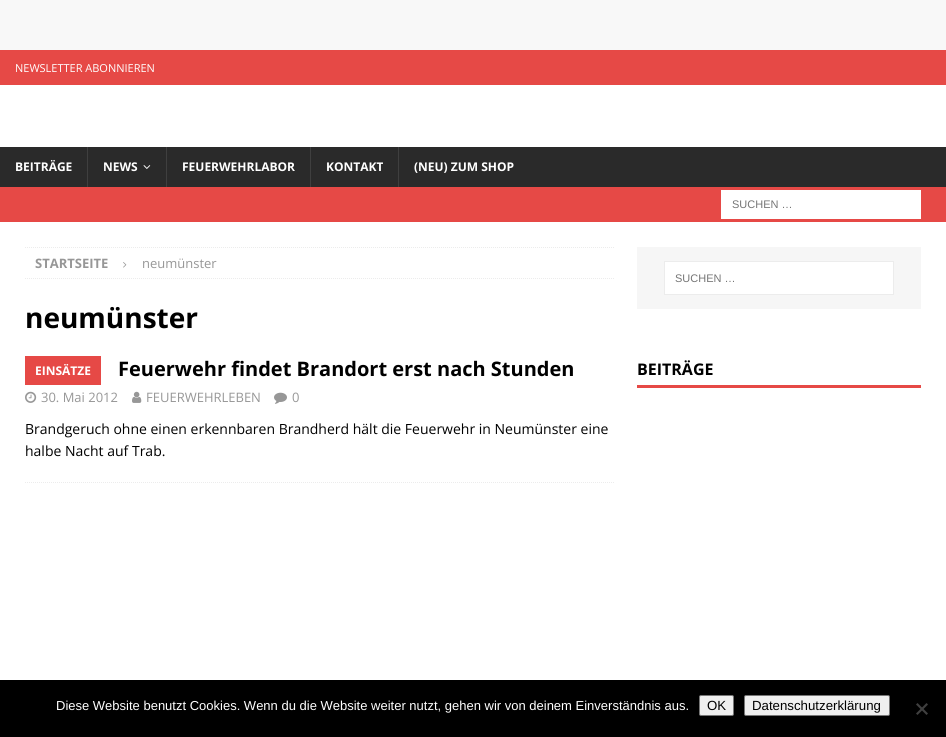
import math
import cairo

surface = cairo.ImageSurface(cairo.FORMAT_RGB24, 946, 737)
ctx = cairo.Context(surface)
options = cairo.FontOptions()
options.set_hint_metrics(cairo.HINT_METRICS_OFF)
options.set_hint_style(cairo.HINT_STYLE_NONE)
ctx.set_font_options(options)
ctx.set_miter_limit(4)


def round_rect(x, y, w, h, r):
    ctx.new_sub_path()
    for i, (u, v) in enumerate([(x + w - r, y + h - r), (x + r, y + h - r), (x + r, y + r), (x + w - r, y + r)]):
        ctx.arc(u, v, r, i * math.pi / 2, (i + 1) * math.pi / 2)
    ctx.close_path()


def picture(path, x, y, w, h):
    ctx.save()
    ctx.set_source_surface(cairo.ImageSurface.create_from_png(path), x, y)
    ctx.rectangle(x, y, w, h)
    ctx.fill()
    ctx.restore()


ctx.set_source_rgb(0.969, 0.969, 0.969)
ctx.paint()
ctx.set_source_rgb(0.902, 0.286, 0.275)
ctx.rectangle(0, 50, 946, 35)
ctx.fill()
ctx.select_font_face("Open Sans")
ctx.set_font_size(11)
ctx.set_source_rgb(1, 1, 1)
ctx.move_to(15, 72)
ctx.show_text("NEWSLETTER ABONNIEREN")
ctx.rectangle(0, 85, 946, 62)
ctx.fill()
ctx.set_source_rgb(0.165, 0.165, 0.165)
ctx.rectangle(0, 147, 946, 40)
ctx.fill()
ctx.select_font_face("Open Sans", cairo.FONT_SLANT_NORMAL, cairo.FONT_WEIGHT_BOLD)
ctx.set_font_size(12)
ctx.set_source_rgb(1, 1, 1)
ctx.move_to(15, 171)
ctx.show_text("BEITRÄGE")
ctx.set_source_rgb(0.247, 0.247, 0.247)
ctx.rectangle(87, 147, 1, 40)
ctx.fill()
ctx.set_source_rgb(1, 1, 1)
ctx.move_to(103, 171)
ctx.show_text("NEWS")
picture("img1.png", 143, 165, 8, 4)
ctx.set_source_rgb(0.247, 0.247, 0.247)
ctx.rectangle(166, 147, 1, 40)
ctx.fill()
ctx.set_source_rgb(1, 1, 1)
ctx.move_to(182, 171)
ctx.show_text("FEUERWEHRLABOR")
ctx.set_source_rgb(0.247, 0.247, 0.247)
ctx.rectangle(310, 147, 1, 40)
ctx.fill()
ctx.set_source_rgb(1, 1, 1)
ctx.move_to(326, 171)
ctx.show_text("KONTAKT")
ctx.set_source_rgb(0.247, 0.247, 0.247)
ctx.rectangle(398, 147, 1, 40)
ctx.fill()
ctx.set_source_rgb(1, 1, 1)
ctx.move_to(414, 171)
ctx.show_text("(NEU) ZUM SHOP")
ctx.set_source_rgb(0.902, 0.286, 0.275)
ctx.rectangle(0, 187, 946, 35)
ctx.fill()
ctx.set_source_rgb(1, 1, 1)
ctx.rectangle(721, 190, 200, 29)
ctx.fill()
ctx.select_font_face("Liberation Sans")
ctx.set_font_size(11)
ctx.set_source_rgb(0.459, 0.459, 0.459)
ctx.move_to(732, 208)
ctx.show_text("SUCHEN …")
ctx.set_source_rgb(1, 1, 1)
ctx.rectangle(0, 222, 946, 458)
ctx.fill()
ctx.new_path()
ctx.move_to(25, 247.5)
ctx.line_to(615, 247.5)
ctx.set_source_rgb(0.922, 0.922, 0.922)
ctx.set_line_width(1)
ctx.set_dash([1, 1])
ctx.stroke()
ctx.new_path()
ctx.move_to(25, 278.5)
ctx.line_to(615, 278.5)
ctx.stroke()
ctx.select_font_face("Open Sans", cairo.FONT_SLANT_NORMAL, cairo.FONT_WEIGHT_BOLD)
ctx.set_font_size(13)
ctx.set_source_rgb(0.592, 0.592, 0.592)
ctx.move_to(35, 268)
ctx.show_text("STARTSEITE")
picture("img2.png", 123, 262, 4, 6)
ctx.select_font_face("Open Sans")
ctx.move_to(142, 268)
ctx.show_text("neumünster")
ctx.select_font_face("Open Sans", cairo.FONT_SLANT_NORMAL, cairo.FONT_WEIGHT_BOLD)
ctx.set_font_size(28)
ctx.set_source_rgb(0, 0, 0)
ctx.move_to(25, 328)
ctx.show_text("neumünster")
ctx.new_path()
ctx.move_to(25, 482.5)
ctx.line_to(615, 482.5)
ctx.set_source_rgb(0.922, 0.922, 0.922)
ctx.stroke()
ctx.set_font_size(20)
ctx.set_source_rgb(0, 0, 0)
ctx.move_to(118, 376)
ctx.show_text("Feuerwehr findet Brandort erst nach Stunden")
picture("img3.png", 25, 391, 12, 12)
ctx.select_font_face("Open Sans")
ctx.set_font_size(13)
ctx.set_source_rgb(0.592, 0.592, 0.592)
ctx.move_to(41, 402)
ctx.show_text("30. Mai 2012")
picture("img4.png", 132, 391, 10, 12)
ctx.move_to(146, 402)
ctx.show_text("FEUERWEHRLEBEN")
picture("img5.png", 274, 392, 13, 12)
ctx.move_to(292, 402)
ctx.show_text("0")
ctx.set_font_size(14)
ctx.set_source_rgb(0, 0, 0)
ctx.move_to(25, 434)
ctx.show_text("Brandgeruch ohne einen erkennbaren Brandherd hält die Feuerwehr in Neumünster eine")
ctx.move_to(25, 456)
ctx.show_text("halbe Nacht auf Trab.")
ctx.set_source_rgb(0.902, 0.286, 0.275)
ctx.rectangle(25, 356, 76, 29)
ctx.fill()
ctx.select_font_face("Open Sans", cairo.FONT_SLANT_NORMAL, cairo.FONT_WEIGHT_BOLD)
ctx.set_font_size(12)
ctx.set_source_rgb(1, 1, 1)
ctx.move_to(35, 375)
ctx.show_text("EINSÄTZE")
ctx.set_source_rgb(0.961, 0.961, 0.961)
ctx.rectangle(637, 247, 284, 62)
ctx.fill()
ctx.set_source_rgb(1, 1, 1)
ctx.rectangle(664.5, 261.5, 229, 33)
ctx.fill_preserve()
ctx.set_source_rgb(0.922, 0.922, 0.922)
ctx.set_dash([])
ctx.stroke()
ctx.select_font_face("Liberation Sans")
ctx.set_font_size(11)
ctx.set_source_rgb(0.459, 0.459, 0.459)
ctx.move_to(675, 282)
ctx.show_text("SUCHEN …")
ctx.set_source_rgb(0.902, 0.286, 0.275)
ctx.rectangle(637, 385, 284, 3)
ctx.fill()
ctx.select_font_face("Open Sans", cairo.FONT_SLANT_NORMAL, cairo.FONT_WEIGHT_BOLD)
ctx.set_font_size(16)
ctx.set_source_rgb(0, 0, 0)
ctx.move_to(637, 375)
ctx.show_text("BEITRÄGE")
ctx.rectangle(0, 680, 946, 57)
ctx.fill()
ctx.select_font_face("Liberation Sans")
ctx.set_font_size(13)
ctx.set_source_rgb(1, 1, 1)
ctx.move_to(56, 710)
ctx.show_text("Diese Website benutzt Cookies. Wenn du die Website weiter nutzt, gehen wir von deinem Einverständnis aus.")
ctx.set_source_rgb(0.937, 0.937, 0.937)
round_rect(699.5, 695.5, 34, 20, 1.5)
ctx.fill_preserve()
ctx.set_source_rgb(0.463, 0.463, 0.463)
ctx.stroke()
ctx.set_font_size(13.25)
ctx.set_source_rgb(0, 0, 0)
ctx.move_to(707, 710)
ctx.show_text("OK")
ctx.set_source_rgb(0.937, 0.937, 0.937)
round_rect(744.5, 695.5, 145, 20, 1.5)
ctx.fill_preserve()
ctx.set_source_rgb(0.463, 0.463, 0.463)
ctx.stroke()
ctx.set_source_rgb(0, 0, 0)
ctx.move_to(752, 710)
ctx.show_text("Datenschutzerklärung")
ctx.set_source_rgb(0.251, 0.251, 0.251)
ctx.new_path()
ctx.move_to(926.5, 703)
ctx.line_to(928, 704.5)
ctx.line_to(917.5, 715)
ctx.line_to(916, 713.5)
ctx.close_path()
ctx.fill()
ctx.new_path()
ctx.move_to(916, 704.5)
ctx.line_to(917.5, 703)
ctx.line_to(928, 713.5)
ctx.line_to(926.5, 715)
ctx.close_path()
ctx.fill()
surface.write_to_png("page.png")
